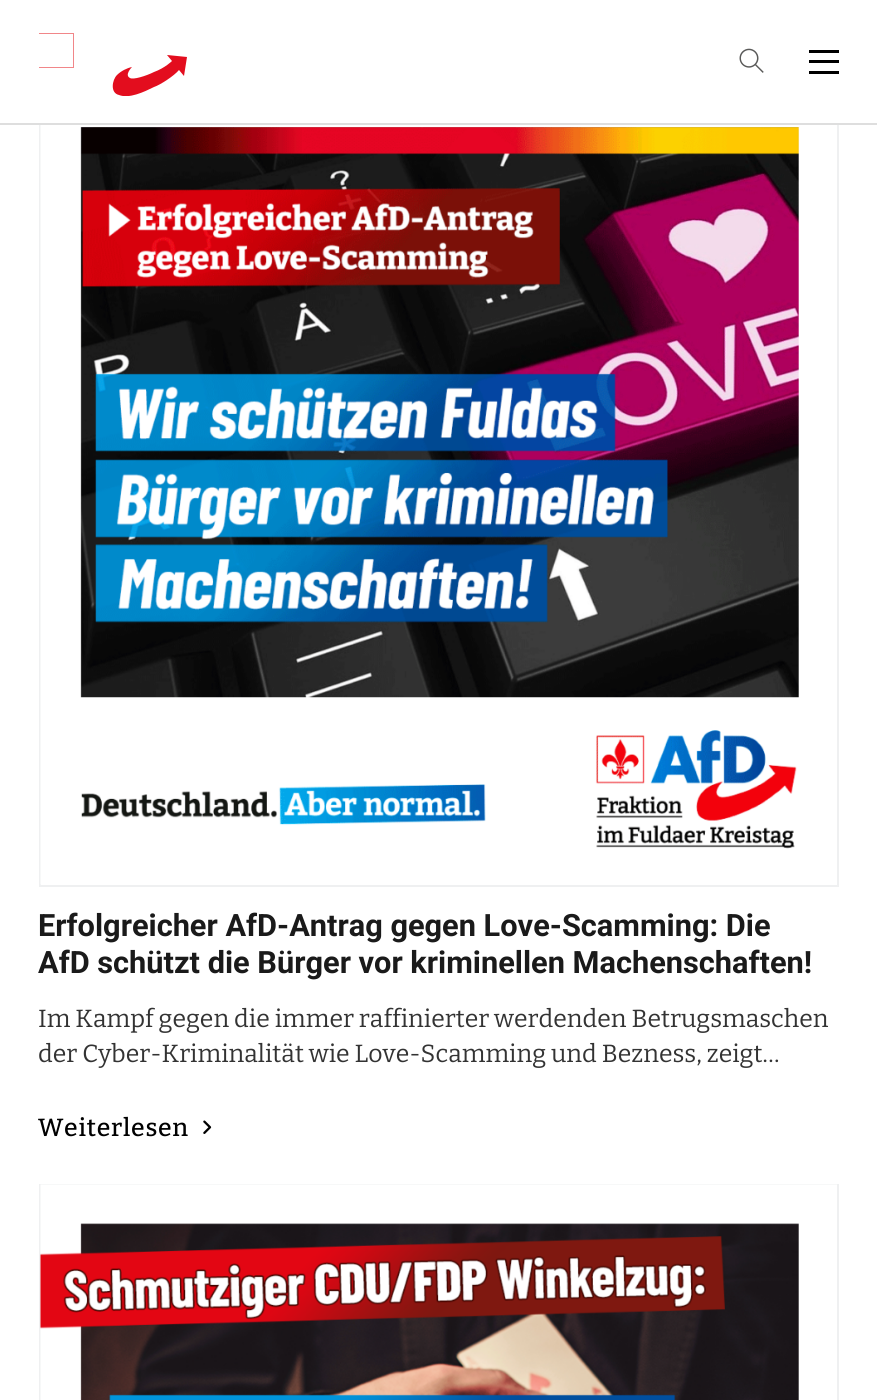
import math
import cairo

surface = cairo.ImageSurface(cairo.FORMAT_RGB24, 877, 1400)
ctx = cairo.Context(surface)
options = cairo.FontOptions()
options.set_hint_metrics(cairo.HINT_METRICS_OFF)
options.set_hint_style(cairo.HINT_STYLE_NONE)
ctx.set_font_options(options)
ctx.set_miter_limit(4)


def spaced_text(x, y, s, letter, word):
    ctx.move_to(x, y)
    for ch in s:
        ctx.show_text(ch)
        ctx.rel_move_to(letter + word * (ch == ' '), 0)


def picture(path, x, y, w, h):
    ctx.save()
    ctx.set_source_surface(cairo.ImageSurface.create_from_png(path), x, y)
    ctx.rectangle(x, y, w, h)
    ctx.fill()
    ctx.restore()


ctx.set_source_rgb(1, 1, 1)
ctx.paint()
ctx.rectangle(40, 88, 798, 798)
ctx.set_source_rgb(0.937, 0.941, 0.945)
ctx.stroke()
ctx.set_source_rgb(1, 1, 1)
ctx.rectangle(39, 87, 800, 36)
ctx.fill()
ctx.set_source_rgb(0.871, 0.871, 0.871)
ctx.rectangle(0, 123, 877, 2)
ctx.fill()
ctx.save()
ctx.rectangle(39, 29, 150, 67)
ctx.clip()
ctx.set_source_rgb(0.89, 0.051, 0.118)
ctx.new_path()
ctx.move_to(167, 55)
ctx.line_to(172, 61)
ctx.curve_to(172, 61, 165, 68, 154, 72)
ctx.curve_to(146, 76, 133, 80, 130, 78)
ctx.curve_to(124, 75, 132, 67, 132, 67)
ctx.curve_to(127, 68, 121, 71, 117, 75)
ctx.curve_to(112, 80, 110, 93, 119, 95)
ctx.curve_to(129, 99, 144, 92, 154, 87)
ctx.curve_to(160, 85, 174, 76, 179, 70)
ctx.line_to(184, 76)
ctx.line_to(187, 57)
ctx.close_path()
ctx.fill()
ctx.set_source_rgb(0.89, 0.051, 0.082)
ctx.new_path()
ctx.move_to(73.5, 33)
ctx.line_to(38.5, 33)
ctx.line_to(38.5, 68)
ctx.line_to(73.5, 68)
ctx.close_path()
ctx.move_to(39, 33.5)
ctx.line_to(73, 33.5)
ctx.line_to(73, 67.5)
ctx.line_to(39, 67.5)
ctx.close_path()
ctx.fill()
ctx.restore()
picture("img1.png", 739, 48, 25, 25)
ctx.set_source_rgb(0, 0, 0)
ctx.rectangle(809, 50, 30, 3)
ctx.fill()
ctx.rectangle(809, 60, 30, 3)
ctx.fill()
ctx.rectangle(809, 71, 30, 3)
ctx.fill()
picture("img2.png", 40, 125, 797, 760)
ctx.select_font_face("Roboto", cairo.FONT_SLANT_NORMAL, cairo.FONT_WEIGHT_BOLD)
ctx.set_font_size(30.75)
ctx.set_source_rgb(0.102, 0.102, 0.102)
ctx.move_to(38, 936)
ctx.show_text("Erfolgreicher AfD-Antrag gegen Love-Scamming: Die")
ctx.move_to(38, 973)
ctx.show_text("AfD schützt die Bürger vor kriminellen Machenschaften!")
ctx.select_font_face("Bitter")
ctx.set_font_size(24.8)
ctx.set_source_rgb(0.2, 0.2, 0.2)
ctx.move_to(38, 1027)
ctx.show_text("Im Kampf gegen die immer raffinierter werdenden Betrugsmaschen")
ctx.move_to(38, 1062)
ctx.show_text("der Cyber-Kriminalität wie Love-Scamming und Bezness, zeigt…")
ctx.select_font_face("Bitter Medium")
ctx.set_source_rgb(0, 0, 0)
spaced_text(38, 1136, "Weiterlesen", 0.75, 0)
picture("img3.png", 203, 1120, 9, 14)
ctx.rectangle(40, 1185, 798, 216)
ctx.set_source_rgb(0.937, 0.941, 0.945)
ctx.stroke()
picture("img4.png", 40, 1184, 797, 216)
surface.write_to_png("page.png")
